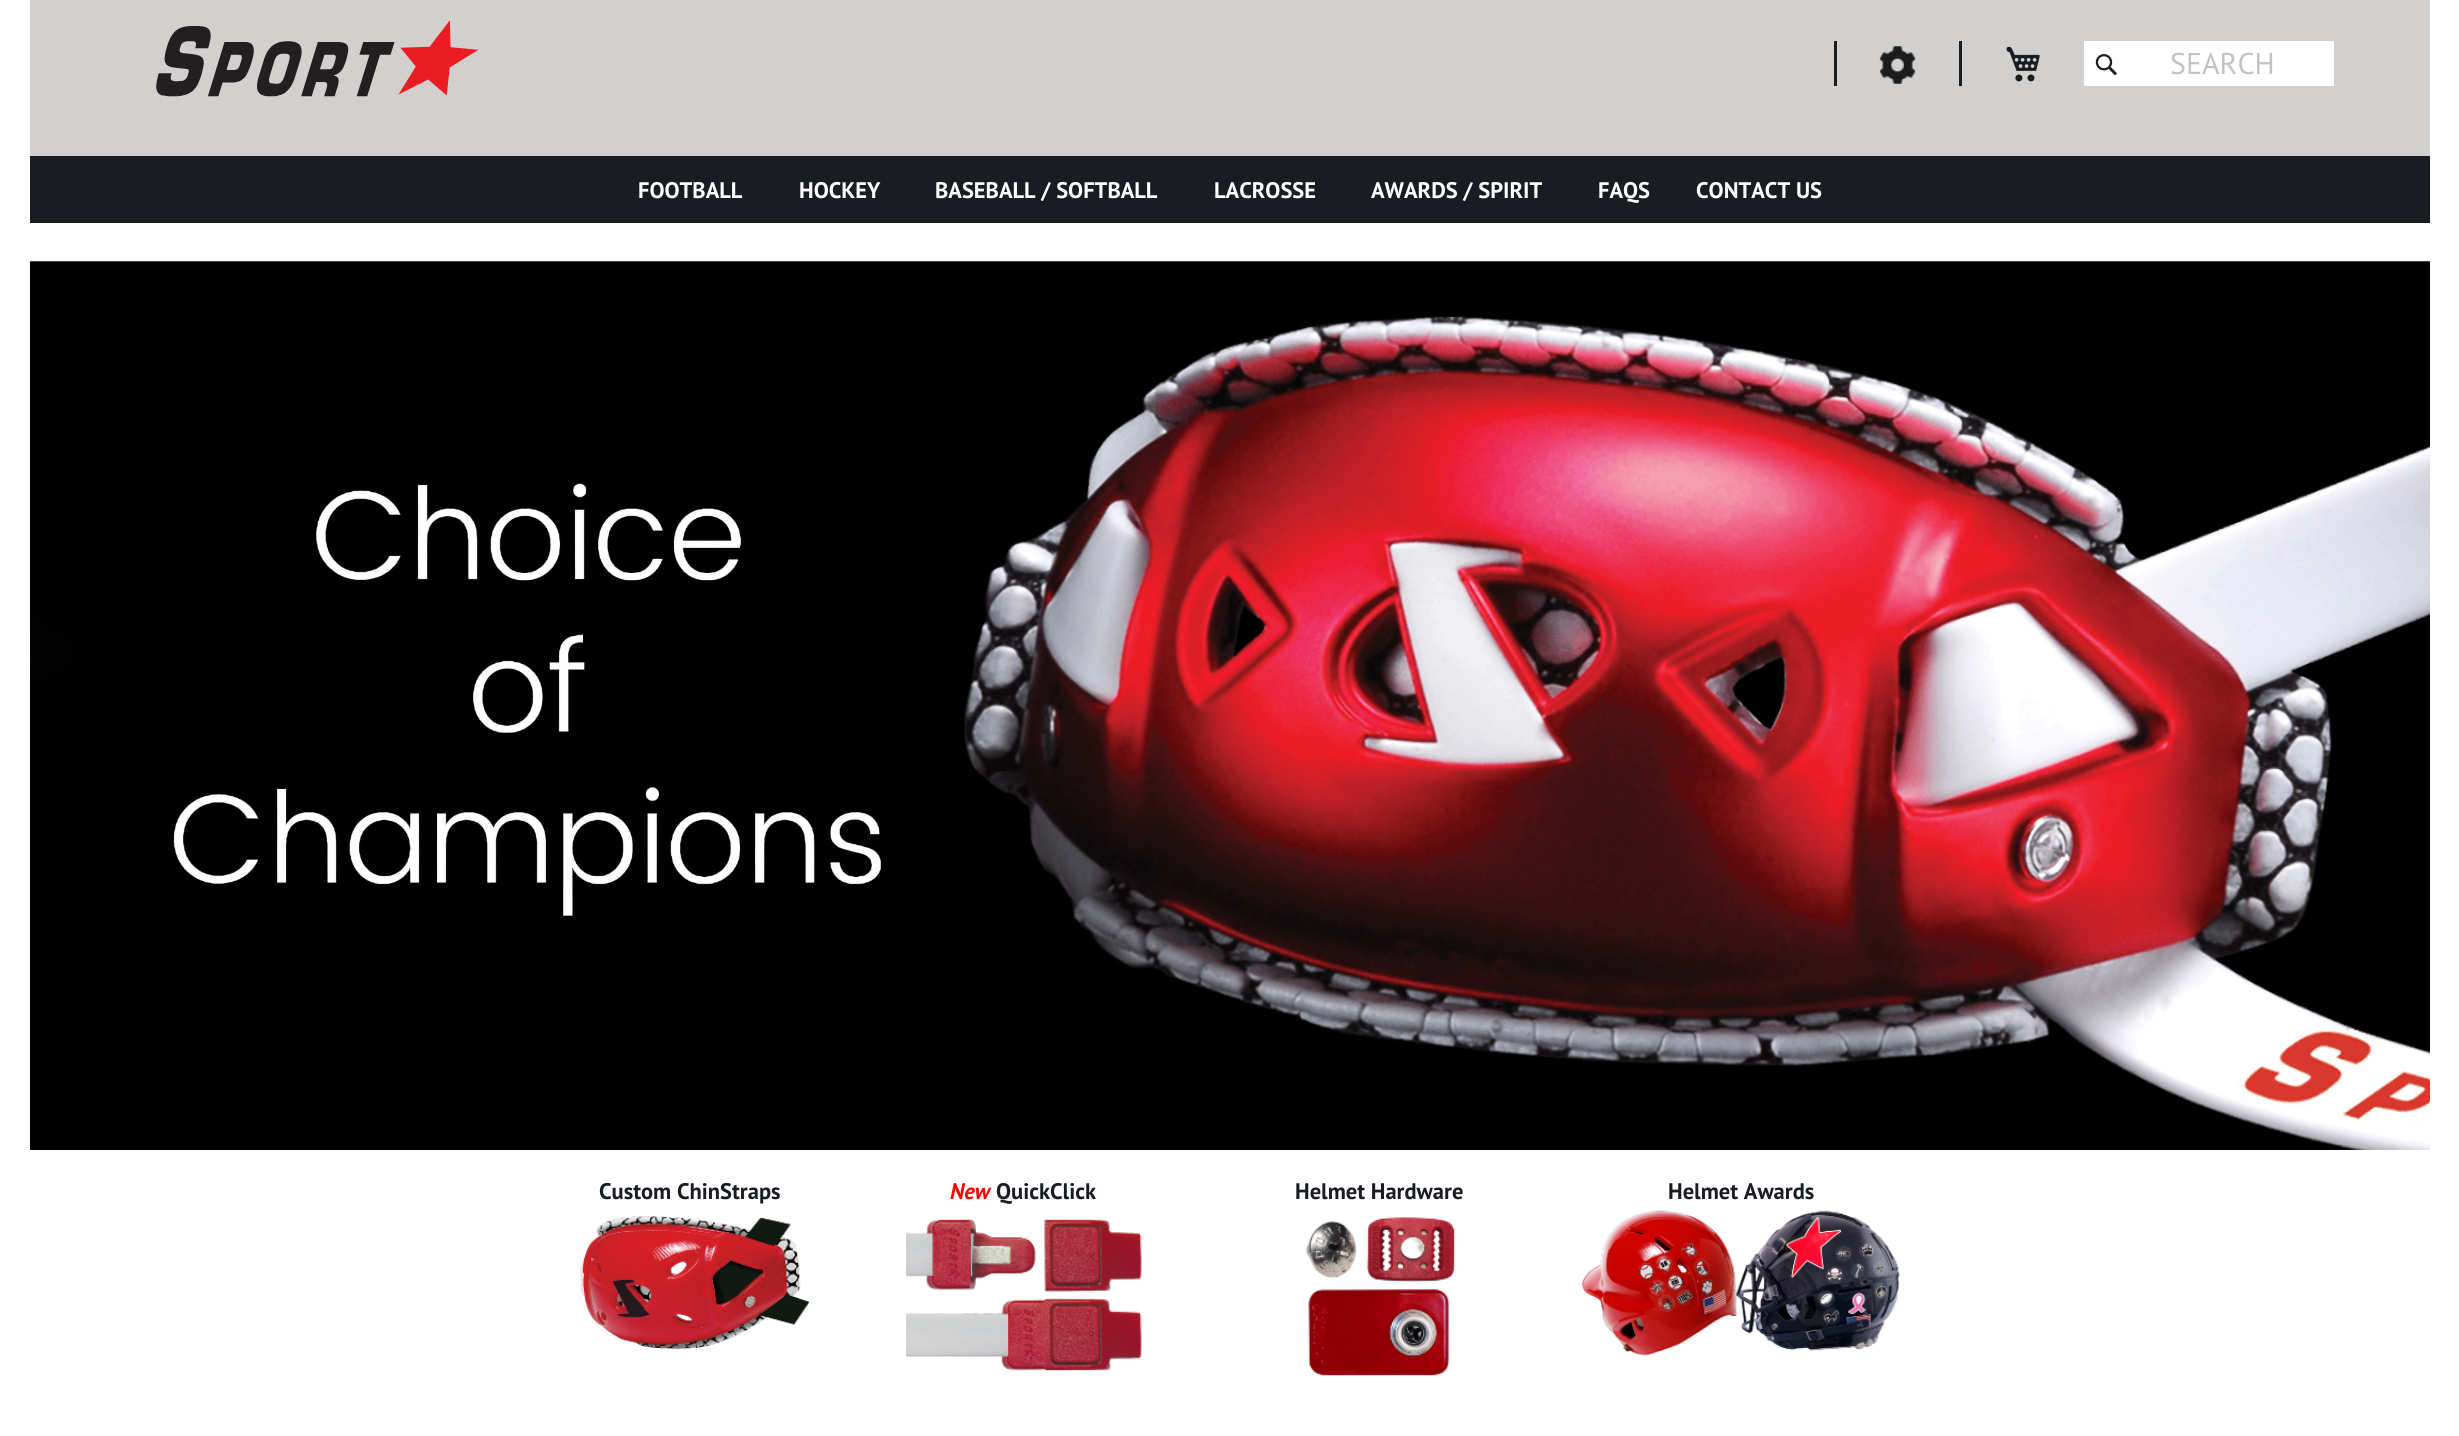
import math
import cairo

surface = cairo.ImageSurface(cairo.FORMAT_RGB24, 2459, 1436)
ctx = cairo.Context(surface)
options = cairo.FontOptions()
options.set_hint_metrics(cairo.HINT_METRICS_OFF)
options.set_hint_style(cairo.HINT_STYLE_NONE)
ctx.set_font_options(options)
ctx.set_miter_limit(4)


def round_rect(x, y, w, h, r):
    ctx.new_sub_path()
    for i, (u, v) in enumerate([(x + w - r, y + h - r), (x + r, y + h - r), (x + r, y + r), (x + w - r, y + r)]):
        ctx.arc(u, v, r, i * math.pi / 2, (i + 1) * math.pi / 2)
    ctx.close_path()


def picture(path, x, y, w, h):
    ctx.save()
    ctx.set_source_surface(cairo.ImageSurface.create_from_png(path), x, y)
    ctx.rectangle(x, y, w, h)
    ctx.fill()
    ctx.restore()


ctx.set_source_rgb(1, 1, 1)
ctx.paint()
ctx.set_source_rgb(0.82, 0.816, 0.808)
ctx.rectangle(30, 0, 2400, 156)
ctx.fill()
picture("img1.png", 156, 20, 323, 77)
ctx.set_source_rgb(0.098, 0.11, 0.129)
ctx.rectangle(1834, 41, 3, 45)
ctx.fill()
picture("img2.png", 1879, 46, 37, 38)
ctx.rectangle(1959, 41, 3, 45)
ctx.fill()
picture("img3.png", 2006, 46, 34, 36)
ctx.set_source_rgb(1, 1, 1)
round_rect(2084, 41, 250, 45, 1)
ctx.fill()
picture("img4.png", 2095, 54, 22, 21)
ctx.select_font_face("PT Sans")
ctx.set_font_size(30)
ctx.set_source_rgb(0.761, 0.761, 0.761)
ctx.move_to(2170, 74)
ctx.show_text("SEARCH")
ctx.set_source_rgb(0.098, 0.11, 0.129)
ctx.rectangle(30, 156, 2400, 67)
ctx.fill()
ctx.select_font_face("PT Sans", cairo.FONT_SLANT_NORMAL, cairo.FONT_WEIGHT_BOLD)
ctx.set_font_size(22.5)
ctx.set_source_rgb(1, 1, 1)
ctx.move_to(638, 198)
ctx.show_text("FOOTBALL")
ctx.move_to(799, 198)
ctx.show_text("HOCKEY")
ctx.move_to(935, 198)
ctx.show_text("BASEBALL / SOFTBALL")
ctx.move_to(1214, 198)
ctx.show_text("LACROSSE")
ctx.move_to(1371, 198)
ctx.show_text("AWARDS / SPIRIT")
ctx.move_to(1598, 198)
ctx.show_text("FAQS")
ctx.move_to(1696, 198)
ctx.show_text("CONTACT US")
picture("img5.png", 30, 261, 2400, 889)
ctx.set_source_rgb(0.098, 0.11, 0.129)
ctx.move_to(599, 1199)
ctx.show_text("Custom ChinStraps")
picture("img6.png", 579, 1216, 231, 134)
ctx.select_font_face("PT Sans", cairo.FONT_SLANT_ITALIC, cairo.FONT_WEIGHT_BOLD)
ctx.set_source_rgb(1, 0, 0)
ctx.move_to(950, 1199)
ctx.show_text("New")
ctx.select_font_face("PT Sans", cairo.FONT_SLANT_NORMAL, cairo.FONT_WEIGHT_BOLD)
ctx.set_source_rgb(0.098, 0.11, 0.129)
ctx.move_to(996, 1199)
ctx.show_text("QuickClick")
picture("img7.png", 906, 1219, 236, 152)
ctx.move_to(1295, 1199)
ctx.show_text("Helmet Hardware")
picture("img8.png", 1305, 1217, 150, 159)
ctx.move_to(1668, 1199)
ctx.show_text("Helmet Awards")
picture("img9.png", 1581, 1210, 319, 146)
surface.write_to_png("page.png")
